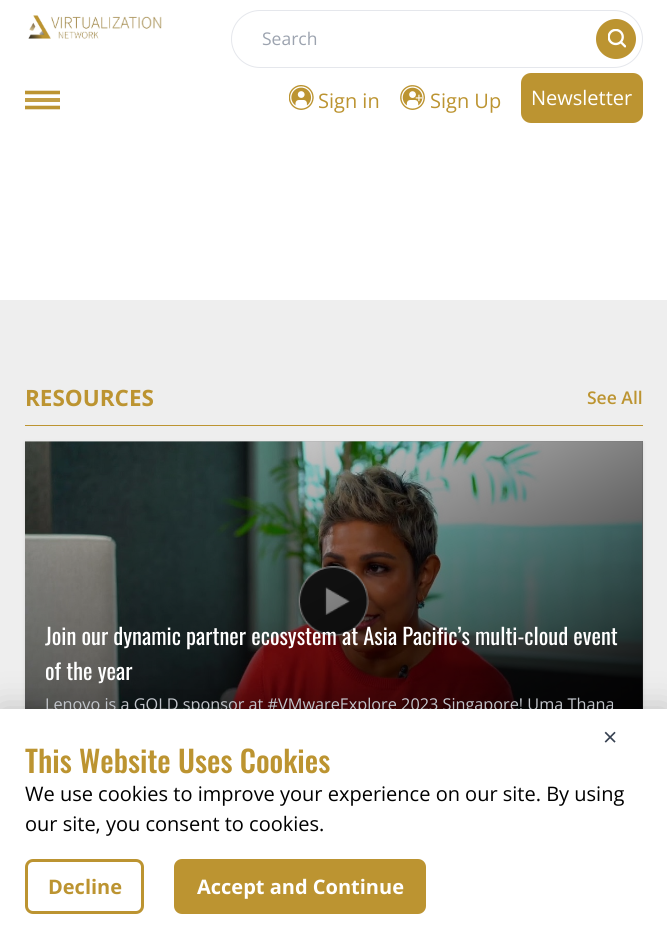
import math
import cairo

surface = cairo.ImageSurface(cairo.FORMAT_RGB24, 667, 943)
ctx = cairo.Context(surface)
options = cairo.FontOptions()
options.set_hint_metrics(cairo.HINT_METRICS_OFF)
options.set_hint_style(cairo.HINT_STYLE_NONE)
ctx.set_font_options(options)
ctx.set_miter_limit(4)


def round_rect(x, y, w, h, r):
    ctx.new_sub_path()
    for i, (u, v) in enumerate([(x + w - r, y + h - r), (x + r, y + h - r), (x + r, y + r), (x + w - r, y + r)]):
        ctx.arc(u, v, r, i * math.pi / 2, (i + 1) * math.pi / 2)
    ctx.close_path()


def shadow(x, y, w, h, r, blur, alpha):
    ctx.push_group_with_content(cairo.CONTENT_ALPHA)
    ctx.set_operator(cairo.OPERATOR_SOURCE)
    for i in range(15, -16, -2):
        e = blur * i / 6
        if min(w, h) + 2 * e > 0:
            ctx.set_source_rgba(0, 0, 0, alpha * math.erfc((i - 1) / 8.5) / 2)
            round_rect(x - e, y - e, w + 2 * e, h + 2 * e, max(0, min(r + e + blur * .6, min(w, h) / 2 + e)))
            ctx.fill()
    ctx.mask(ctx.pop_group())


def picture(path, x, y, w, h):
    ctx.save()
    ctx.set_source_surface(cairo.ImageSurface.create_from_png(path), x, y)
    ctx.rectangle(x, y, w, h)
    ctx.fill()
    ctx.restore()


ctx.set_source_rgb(1, 1, 1)
ctx.paint()
picture("img1.png", 28, 15, 134, 24)
round_rect(231.5, 10.5, 411, 57, 28.5)
ctx.set_source_rgb(0.898, 0.906, 0.922)
ctx.set_line_width(1)
ctx.stroke()
ctx.select_font_face("Open Sans")
ctx.set_font_size(17.5)
ctx.set_source_rgb(0.612, 0.639, 0.686)
ctx.move_to(262, 45)
ctx.show_text("Search")
picture("img2.png", 596, 19, 40, 40)
ctx.new_path()
ctx.move_to(25, 92.5)
ctx.line_to(60, 92.5)
ctx.set_source_rgb(0.737, 0.58, 0.192)
ctx.set_line_width(3.6)
ctx.stroke()
ctx.set_source_rgb(0.765, 0.624, 0.275)
ctx.rectangle(25, 98, 35, 4)
ctx.fill()
ctx.new_path()
ctx.move_to(25, 107.5)
ctx.line_to(60, 107.5)
ctx.set_source_rgb(0.737, 0.58, 0.192)
ctx.stroke()
picture("img3.png", 289, 85, 25, 25)
ctx.set_font_size(20)
ctx.move_to(318, 108)
ctx.show_text("Sign in")
picture("img4.png", 400, 85, 25, 25)
ctx.move_to(430, 108)
ctx.show_text("Sign Up")
round_rect(521, 73, 122, 50, 10)
ctx.fill()
ctx.set_source_rgb(1, 1, 1)
ctx.move_to(531, 105)
ctx.show_text("Newsletter")
ctx.set_source_rgb(0.933, 0.933, 0.933)
ctx.rectangle(0, 300, 667, 409)
ctx.fill()
ctx.set_source_rgb(0.737, 0.58, 0.192)
ctx.rectangle(25, 425, 618, 1)
ctx.fill()
ctx.select_font_face("Open Sans", cairo.FONT_SLANT_NORMAL, cairo.FONT_WEIGHT_BOLD)
ctx.set_font_size(22.5)
ctx.move_to(25, 406)
ctx.show_text("RESOURCES")
ctx.select_font_face("Open Sans SemiBold")
ctx.set_font_size(17.5)
ctx.move_to(587, 404)
ctx.show_text("See All")
ctx.set_source_rgb(0, 0, 0)
shadow(25, 443, 618, 320, 0, 2, 0.1)
picture("img5.png", 25, 441, 618, 268)
picture("img6.png", 298, 566, 71, 71)
gradient = cairo.LinearGradient(203, 349, 464, 854)
gradient.add_color_stop_rgba(0, 0, 0, 0, 0)
gradient.add_color_stop_rgba(1, 0, 0, 0, 1)
ctx.set_source(gradient)
ctx.rectangle(25, 441, 618, 268)
ctx.fill()
ctx.select_font_face("Oswald")
ctx.set_font_size(22.5)
ctx.set_source_rgb(1, 1, 1)
ctx.move_to(45, 645)
ctx.show_text("Join our dynamic partner ecosystem at Asia Pacific’s multi-cloud event")
ctx.move_to(45, 680)
ctx.show_text("of the year")
ctx.select_font_face("Open Sans")
ctx.set_font_size(16.25)
ctx.set_source_rgb(0.82, 0.835, 0.859)
ctx.move_to(45, 710)
ctx.show_text("Lenovo is a GOLD sponsor at #VMwareExplore 2023 Singapore! Uma Thana")
ctx.set_source_rgb(0, 0, 0)
shadow(0, 709, 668, 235, 0, 17.5, 0.2)
ctx.set_source_rgb(1, 1, 1)
ctx.rectangle(0, 709, 667, 234)
ctx.fill()
ctx.set_font_size(25)
ctx.set_source_rgb(0.216, 0.255, 0.318)
ctx.move_to(603, 746)
ctx.show_text("×")
ctx.select_font_face("Oswald Medium")
ctx.set_font_size(30)
ctx.set_source_rgb(0.737, 0.58, 0.192)
ctx.move_to(25, 773)
ctx.show_text("This Website Uses Cookies")
ctx.select_font_face("Open Sans")
ctx.set_font_size(20)
ctx.set_source_rgb(0, 0, 0)
ctx.move_to(25, 801)
ctx.show_text("We use cookies to improve your experience on our site. By using")
ctx.move_to(25, 831)
ctx.show_text("our site, you consent to cookies.")
round_rect(26.5, 860.5, 116, 52, 6.5)
ctx.set_source_rgb(0.737, 0.58, 0.192)
ctx.set_line_width(3)
ctx.stroke()
ctx.select_font_face("Open Sans", cairo.FONT_SLANT_NORMAL, cairo.FONT_WEIGHT_BOLD)
ctx.move_to(48, 894)
ctx.show_text("Decline")
round_rect(175.5, 860.5, 249, 52, 6.5)
ctx.fill_preserve()
ctx.stroke()
ctx.set_source_rgb(1, 1, 1)
ctx.move_to(197, 894)
ctx.show_text("Accept and Continue")
surface.write_to_png("page.png")
